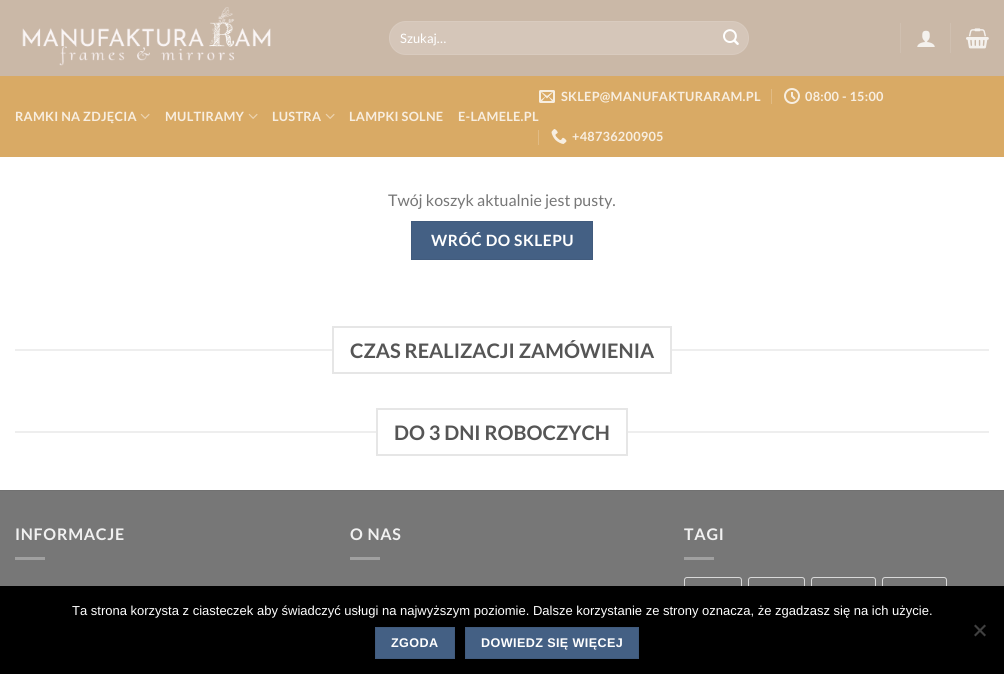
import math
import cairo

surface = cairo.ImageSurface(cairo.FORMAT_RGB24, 1004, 674)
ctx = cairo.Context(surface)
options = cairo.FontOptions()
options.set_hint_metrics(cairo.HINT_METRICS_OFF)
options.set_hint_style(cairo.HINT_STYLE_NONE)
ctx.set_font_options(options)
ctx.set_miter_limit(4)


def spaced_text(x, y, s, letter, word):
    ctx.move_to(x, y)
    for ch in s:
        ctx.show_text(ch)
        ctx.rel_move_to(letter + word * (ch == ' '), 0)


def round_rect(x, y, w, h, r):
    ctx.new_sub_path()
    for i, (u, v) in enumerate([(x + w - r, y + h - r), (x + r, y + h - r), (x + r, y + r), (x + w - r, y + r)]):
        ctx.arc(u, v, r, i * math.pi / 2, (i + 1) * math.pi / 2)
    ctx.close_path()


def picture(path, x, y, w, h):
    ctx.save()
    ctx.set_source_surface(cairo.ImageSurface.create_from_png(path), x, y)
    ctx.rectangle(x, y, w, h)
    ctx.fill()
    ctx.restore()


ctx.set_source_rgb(1, 1, 1)
ctx.paint()
ctx.set_source_rgb(0.792, 0.722, 0.655)
ctx.rectangle(0, 0, 1004, 76)
ctx.fill()
picture("img1.png", 22, 7, 249, 59)
ctx.set_source_rgb(0.835, 0.776, 0.725)
round_rect(389, 21, 360, 34, 17)
ctx.fill()
round_rect(389.5, 21.5, 359, 33, 16.5)
ctx.set_source_rgba(1, 1, 1, 0.09)
ctx.set_line_width(1)
ctx.stroke()
ctx.select_font_face("Lato")
ctx.set_font_size(13)
ctx.set_source_rgb(1, 1, 1)
ctx.move_to(400, 43)
ctx.show_text("Szukaj…")
picture("img2.png", 723, 29, 16, 16)
ctx.set_source_rgb(0.812, 0.749, 0.69)
ctx.rectangle(900, 23, 1, 30)
ctx.fill()
picture("img3.png", 917, 30, 18, 17)
ctx.rectangle(950, 23, 1, 30)
ctx.fill()
picture("img4.png", 966, 28, 23, 21)
ctx.set_source_rgb(0.851, 0.667, 0.396)
ctx.rectangle(0, 76, 1004, 81)
ctx.fill()
ctx.select_font_face("Lato", cairo.FONT_SLANT_NORMAL, cairo.FONT_WEIGHT_BOLD)
ctx.set_font_size(12.75)
ctx.set_source_rgb(0.969, 0.933, 0.878)
spaced_text(15, 121, "RAMKI NA ZDJĘCIA", 0.25, 0)
picture("img5.png", 140, 113, 10, 6)
spaced_text(165, 121, "MULTIRAMY", 0.25, 0)
picture("img5.png", 248, 113, 10, 6)
spaced_text(272, 121, "LUSTRA", 0.25, 0)
picture("img5.png", 325, 113, 10, 6)
spaced_text(349, 121, "LAMPKI SOLNE", 0.25, 0)
spaced_text(458, 121, "E-LAMELE.PL", 0.25, 0)
picture("img6.png", 539, 90, 16, 13)
spaced_text(561, 101, "SKLEP@MANUFAKTURARAM.PL", 0.25, 0)
ctx.set_source_rgb(0.882, 0.733, 0.518)
ctx.rectangle(771, 89, 1, 15)
ctx.fill()
picture("img7.png", 784, 88, 16, 16)
ctx.set_source_rgb(0.969, 0.933, 0.878)
spaced_text(805, 101, "08:00 - 15:00", 0.25, 0)
ctx.set_source_rgb(0.882, 0.733, 0.518)
ctx.rectangle(538, 130, 1, 15)
ctx.fill()
picture("img8.png", 551, 129, 16, 15)
ctx.set_source_rgb(0.969, 0.933, 0.878)
spaced_text(572, 141, "+48736200905", 0.25, 0)
ctx.select_font_face("Lato")
ctx.set_font_size(16)
ctx.set_source_rgb(0.467, 0.467, 0.467)
ctx.move_to(388, 206)
ctx.show_text("Twój koszyk aktualnie jest pusty.")
ctx.set_source_rgb(0.267, 0.376, 0.518)
ctx.rectangle(411.5, 221.5, 181, 38)
ctx.fill_preserve()
ctx.set_source_rgb(0.255, 0.357, 0.49)
ctx.stroke()
ctx.select_font_face("Lato", cairo.FONT_SLANT_NORMAL, cairo.FONT_WEIGHT_BOLD)
ctx.set_font_size(15.5)
ctx.set_source_rgb(1, 1, 1)
spaced_text(431, 246, "WRÓĆ DO SKLEPU", 0.5, 0)
ctx.set_source_rgb(0.933, 0.933, 0.933)
ctx.rectangle(15, 349, 317, 2)
ctx.fill()
ctx.rectangle(333, 327, 338, 46)
ctx.set_source_rgb(0.902, 0.902, 0.902)
ctx.set_line_width(2)
ctx.stroke()
ctx.set_font_size(20)
ctx.set_source_rgb(0.333, 0.333, 0.333)
ctx.move_to(350, 358)
ctx.show_text("CZAS REALIZACJI ZAMÓWIENIA")
ctx.set_source_rgb(0.933, 0.933, 0.933)
ctx.rectangle(672, 349, 317, 2)
ctx.fill()
ctx.rectangle(15, 431, 361, 2)
ctx.fill()
ctx.rectangle(377, 409, 250, 46)
ctx.set_source_rgb(0.902, 0.902, 0.902)
ctx.stroke()
ctx.set_source_rgb(0.333, 0.333, 0.333)
ctx.move_to(394, 440)
ctx.show_text("DO 3 DNI ROBOCZYCH")
ctx.set_source_rgb(0.933, 0.933, 0.933)
ctx.rectangle(628, 431, 361, 2)
ctx.fill()
ctx.set_source_rgb(0.467, 0.467, 0.467)
ctx.rectangle(0, 491, 1004, 95)
ctx.fill()
ctx.set_source_rgb(0.443, 0.443, 0.443)
ctx.rectangle(0, 490, 1004, 1)
ctx.fill()
ctx.set_font_size(16)
ctx.set_source_rgb(0.945, 0.945, 0.945)
spaced_text(15, 540, "INFORMACJE", 0.75, 0)
ctx.set_source_rgb(0.627, 0.627, 0.627)
ctx.rectangle(15, 557, 30, 3)
ctx.fill()
ctx.set_source_rgb(0.945, 0.945, 0.945)
spaced_text(350, 540, "O NAS", 0.75, 0)
ctx.set_source_rgb(0.627, 0.627, 0.627)
ctx.rectangle(350, 557, 30, 3)
ctx.fill()
ctx.set_source_rgb(0.945, 0.945, 0.945)
spaced_text(684, 540, "TAGI", 0.75, 0)
ctx.set_source_rgb(0.627, 0.627, 0.627)
ctx.rectangle(684, 557, 30, 3)
ctx.fill()
round_rect(684.5, 577.5, 57, 26, 2.5)
ctx.set_source_rgb(0.851, 0.851, 0.851)
ctx.set_line_width(1)
ctx.stroke()
round_rect(748.5, 577.5, 56, 26, 2.5)
ctx.stroke()
round_rect(811.5, 577.5, 64, 26, 2.5)
ctx.stroke()
round_rect(882.5, 577.5, 64, 26, 2.5)
ctx.stroke()
ctx.set_source_rgb(0, 0, 0)
ctx.rectangle(0, 586, 1004, 88)
ctx.fill()
ctx.select_font_face("Liberation Sans")
ctx.set_font_size(13)
ctx.set_source_rgb(1, 1, 1)
ctx.move_to(72, 615)
ctx.show_text("Ta strona korzysta z ciasteczek aby świadczyć usługi na najwyższym poziomie. Dalsze korzystanie ze strony oznacza, że zgadzasz się na ich użycie.")
ctx.set_source_rgb(0.251, 0.251, 0.251)
ctx.new_path()
ctx.move_to(984.5, 624.5)
ctx.line_to(986, 626)
ctx.line_to(975.5, 636.5)
ctx.line_to(974, 635)
ctx.close_path()
ctx.fill()
ctx.new_path()
ctx.move_to(974, 626)
ctx.line_to(975.5, 624.5)
ctx.line_to(986, 635)
ctx.line_to(984.5, 636.5)
ctx.close_path()
ctx.fill()
ctx.set_source_rgb(0.267, 0.376, 0.518)
ctx.rectangle(375.5, 627.5, 79, 31)
ctx.fill_preserve()
ctx.set_source_rgb(0.255, 0.357, 0.49)
ctx.stroke()
ctx.select_font_face("Liberation Sans", cairo.FONT_SLANT_NORMAL, cairo.FONT_WEIGHT_BOLD)
ctx.set_font_size(12.6)
ctx.set_source_rgb(1, 1, 1)
spaced_text(391, 647, "ZGODA", 0.4, 0)
ctx.set_source_rgb(0.267, 0.376, 0.518)
ctx.rectangle(465.5, 627.5, 173, 31)
ctx.fill_preserve()
ctx.set_source_rgb(0.255, 0.357, 0.49)
ctx.stroke()
ctx.set_source_rgb(1, 1, 1)
spaced_text(481, 647, "DOWIEDZ SIĘ WIĘCEJ", 0.4, 0)
surface.write_to_png("page.png")
